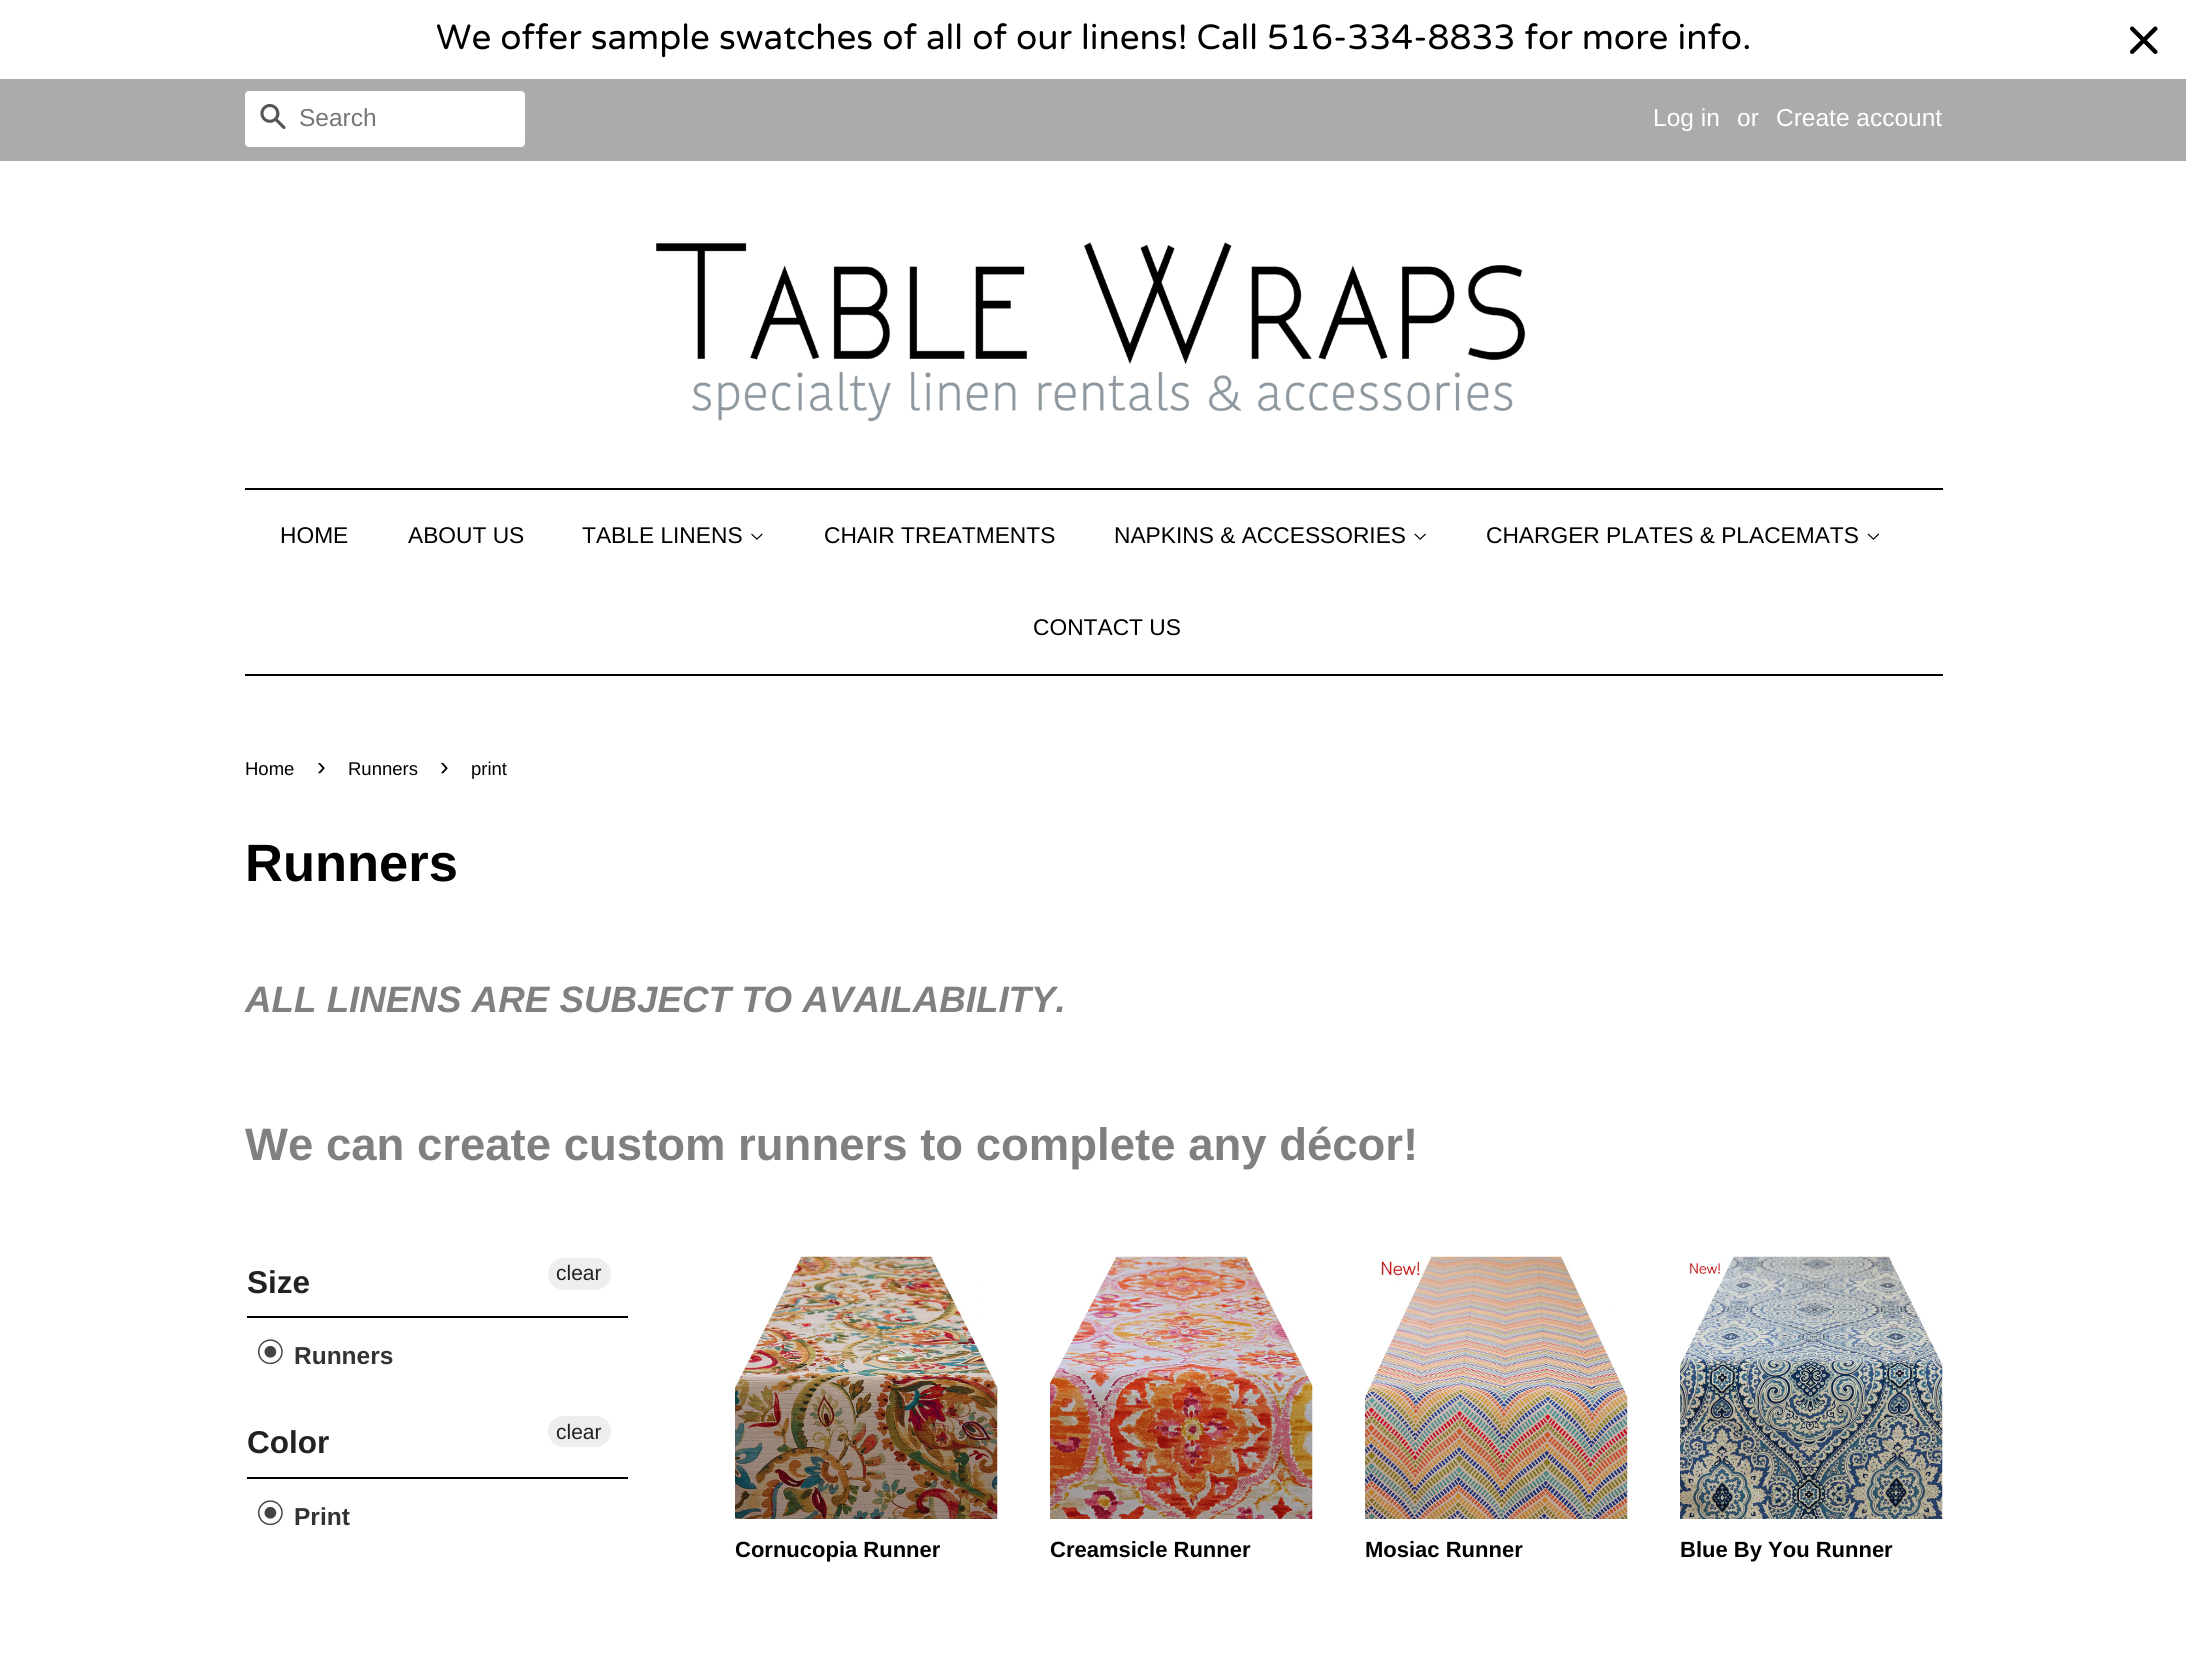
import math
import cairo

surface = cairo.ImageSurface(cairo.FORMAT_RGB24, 2186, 1674)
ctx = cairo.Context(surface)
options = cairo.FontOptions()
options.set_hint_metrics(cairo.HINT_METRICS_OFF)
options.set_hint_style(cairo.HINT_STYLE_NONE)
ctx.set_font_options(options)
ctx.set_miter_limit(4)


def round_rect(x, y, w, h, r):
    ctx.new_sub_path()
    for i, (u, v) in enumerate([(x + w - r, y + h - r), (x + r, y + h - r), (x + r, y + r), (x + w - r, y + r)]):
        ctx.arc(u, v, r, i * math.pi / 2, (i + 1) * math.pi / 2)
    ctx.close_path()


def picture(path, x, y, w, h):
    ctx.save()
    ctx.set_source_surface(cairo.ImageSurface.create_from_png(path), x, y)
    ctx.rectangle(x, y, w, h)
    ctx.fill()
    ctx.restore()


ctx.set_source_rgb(1, 1, 1)
ctx.paint()
ctx.select_font_face("Varela Round")
ctx.set_font_size(35)
ctx.set_source_rgb(0, 0, 0)
ctx.move_to(436, 49)
ctx.show_text("We offer sample swatches of all of our linens! Call 516-334-8833 for more info.")
picture("img1.png", 2130, 26, 28, 28)
ctx.set_source_rgb(0.671, 0.671, 0.671)
ctx.rectangle(0, 79, 2186, 82)
ctx.fill()
ctx.set_source_rgb(1, 1, 1)
round_rect(245, 91, 280, 56, 4)
ctx.fill()
picture("img2.png", 260, 104, 26, 25)
ctx.select_font_face("Liberation Sans")
ctx.set_font_size(24.5)
ctx.set_source_rgb(0.459, 0.459, 0.459)
ctx.move_to(299, 126)
ctx.show_text("Search")
ctx.set_source_rgb(1, 1, 1)
ctx.move_to(1653, 126)
ctx.show_text("Log in")
ctx.move_to(1737, 126)
ctx.show_text("or")
ctx.move_to(1776, 126)
ctx.show_text("Create account")
picture("img3.png", 656, 242, 870, 180)
ctx.set_source_rgb(0, 0, 0)
ctx.rectangle(245, 488, 1698, 2)
ctx.fill()
ctx.rectangle(245, 674, 1698, 2)
ctx.fill()
ctx.set_font_size(22.75)
ctx.move_to(280, 543)
ctx.show_text("HOME")
ctx.move_to(408, 543)
ctx.show_text("ABOUT US")
ctx.move_to(582, 543)
ctx.show_text("TABLE LINENS")
picture("img4.png", 751, 533, 12, 7)
ctx.move_to(824, 543)
ctx.show_text("CHAIR TREATMENTS")
ctx.move_to(1114, 543)
ctx.show_text("NAPKINS & ACCESSORIES")
picture("img5.png", 1414, 533, 12, 7)
ctx.move_to(1486, 543)
ctx.show_text("CHARGER PLATES & PLACEMATS")
picture("img6.png", 1867, 533, 12, 7)
ctx.move_to(1033, 635)
ctx.show_text("CONTACT US")
ctx.set_font_size(18.5)
ctx.move_to(245, 775)
ctx.show_text("Home")
ctx.set_font_size(26)
ctx.move_to(317, 775)
ctx.show_text("›")
ctx.set_font_size(18.5)
ctx.move_to(348, 775)
ctx.show_text("Runners")
ctx.set_font_size(26)
ctx.move_to(440, 775)
ctx.show_text("›")
ctx.set_font_size(18.5)
ctx.move_to(471, 775)
ctx.show_text("print")
ctx.select_font_face("Liberation Sans", cairo.FONT_SLANT_NORMAL, cairo.FONT_WEIGHT_BOLD)
ctx.set_font_size(52.5)
ctx.move_to(245, 881)
ctx.show_text("Runners")
ctx.select_font_face("Liberation Sans", cairo.FONT_SLANT_ITALIC, cairo.FONT_WEIGHT_BOLD)
ctx.set_font_size(36.75)
ctx.set_source_rgb(0.502, 0.502, 0.502)
ctx.move_to(245, 1012)
ctx.show_text("ALL LINENS ARE SUBJECT TO AVAILABILITY.")
ctx.select_font_face("Liberation Sans", cairo.FONT_SLANT_NORMAL, cairo.FONT_WEIGHT_BOLD)
ctx.set_font_size(45.5)
ctx.move_to(245, 1160)
ctx.show_text("We can create custom runners to complete any décor!")
ctx.set_source_rgb(0, 0, 0)
ctx.rectangle(247, 1316, 381, 2)
ctx.fill()
ctx.set_font_size(31.5)
ctx.set_source_rgb(0.133, 0.133, 0.133)
ctx.move_to(247, 1293)
ctx.show_text("Size")
ctx.set_source_rgb(0.933, 0.933, 0.933)
round_rect(548, 1258, 63, 32, 16)
ctx.fill()
ctx.select_font_face("Liberation Sans")
ctx.set_font_size(21)
ctx.set_source_rgb(0.133, 0.133, 0.133)
ctx.move_to(556, 1280)
ctx.show_text("clear")
picture("img7.png", 258, 1339, 25, 26)
ctx.select_font_face("Liberation Sans", cairo.FONT_SLANT_NORMAL, cairo.FONT_WEIGHT_BOLD)
ctx.set_font_size(24.5)
ctx.set_source_rgb(0.2, 0.2, 0.2)
ctx.move_to(294, 1364)
ctx.show_text("Runners")
ctx.set_source_rgb(0, 0, 0)
ctx.rectangle(247, 1477, 381, 2)
ctx.fill()
ctx.set_font_size(31.5)
ctx.set_source_rgb(0.133, 0.133, 0.133)
ctx.move_to(247, 1453)
ctx.show_text("Color")
ctx.set_source_rgb(0.933, 0.933, 0.933)
round_rect(548, 1416, 63, 31, 15.5)
ctx.fill()
ctx.select_font_face("Liberation Sans")
ctx.set_font_size(21)
ctx.set_source_rgb(0.133, 0.133, 0.133)
ctx.move_to(556, 1439)
ctx.show_text("clear")
picture("img7.png", 258, 1500, 25, 26)
ctx.select_font_face("Liberation Sans", cairo.FONT_SLANT_NORMAL, cairo.FONT_WEIGHT_BOLD)
ctx.set_font_size(24.5)
ctx.set_source_rgb(0.2, 0.2, 0.2)
ctx.move_to(294, 1525)
ctx.show_text("Print")
picture("img8.png", 735, 1256, 263, 263)
ctx.set_font_size(22)
ctx.set_source_rgb(0, 0, 0)
ctx.move_to(735, 1557)
ctx.show_text("Cornucopia Runner")
picture("img9.png", 1050, 1256, 263, 263)
ctx.move_to(1050, 1557)
ctx.show_text("Creamsicle Runner")
picture("img10.png", 1365, 1256, 263, 263)
ctx.move_to(1365, 1557)
ctx.show_text("Mosiac Runner")
picture("img11.png", 1680, 1256, 263, 263)
ctx.move_to(1680, 1557)
ctx.show_text("Blue By You Runner")
surface.write_to_png("page.png")
